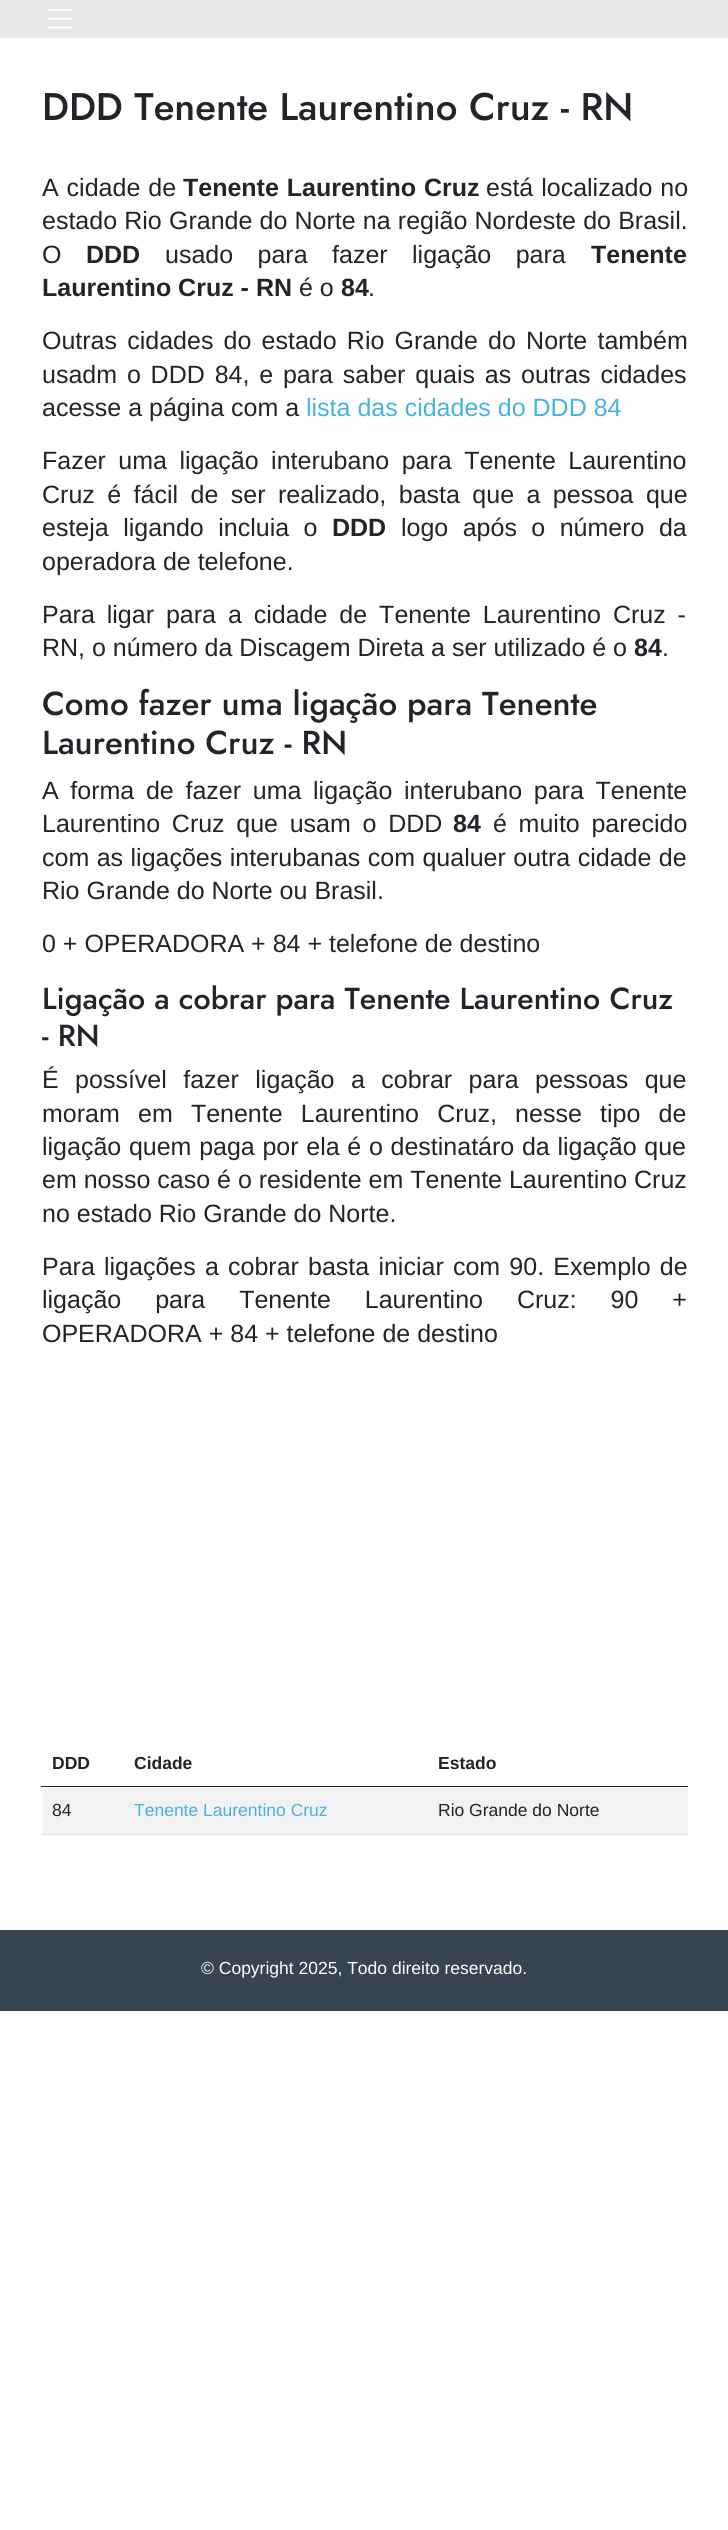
import math
import cairo

surface = cairo.ImageSurface(cairo.FORMAT_RGB24, 728, 2530)
ctx = cairo.Context(surface)
options = cairo.FontOptions()
options.set_hint_metrics(cairo.HINT_METRICS_OFF)
options.set_hint_style(cairo.HINT_STYLE_NONE)
ctx.set_font_options(options)
ctx.set_miter_limit(4)


def spaced_text(x, y, s, letter, word):
    ctx.move_to(x, y)
    for ch in s:
        ctx.show_text(ch)
        ctx.rel_move_to(letter + word * (ch == ' '), 0)


def picture(path, x, y, w, h):
    ctx.save()
    ctx.set_source_surface(cairo.ImageSurface.create_from_png(path), x, y)
    ctx.rectangle(x, y, w, h)
    ctx.fill()
    ctx.restore()


ctx.set_source_rgb(1, 1, 1)
ctx.paint()
ctx.set_source_rgb(0.906, 0.906, 0.906)
ctx.rectangle(0, 0, 728, 38)
ctx.fill()
picture("img1.png", 48, 9, 24, 20)
ctx.select_font_face("Jost Medium")
ctx.set_font_size(38.4)
ctx.set_source_rgb(0.129, 0.145, 0.161)
ctx.move_to(42, 120)
ctx.show_text("DDD Tenente Laurentino Cruz - RN")
ctx.select_font_face("Liberation Sans")
ctx.set_font_size(25)
spaced_text(42, 196, "A cidade de", 0, 1)
ctx.select_font_face("Liberation Sans", cairo.FONT_SLANT_NORMAL, cairo.FONT_WEIGHT_BOLD)
spaced_text(183, 196, "Tenente Laurentino Cruz", 0, 1)
ctx.select_font_face("Liberation Sans")
spaced_text(486, 196, "está localizado no", 0, 1)
spaced_text(42, 229, "estado Rio Grande do Norte na região Nordeste do Brasil.", 0, 0.25)
ctx.move_to(42, 263)
ctx.show_text("O")
ctx.select_font_face("Liberation Sans", cairo.FONT_SLANT_NORMAL, cairo.FONT_WEIGHT_BOLD)
ctx.move_to(86, 263)
ctx.show_text("DDD")
ctx.select_font_face("Liberation Sans")
spaced_text(165, 263, "usado para fazer ligação para", 0, 17.5)
ctx.select_font_face("Liberation Sans", cairo.FONT_SLANT_NORMAL, cairo.FONT_WEIGHT_BOLD)
ctx.move_to(591, 263)
ctx.show_text("Tenente")
ctx.move_to(42, 296)
ctx.show_text("Laurentino Cruz - RN")
ctx.select_font_face("Liberation Sans")
ctx.move_to(299, 296)
ctx.show_text("é o")
ctx.select_font_face("Liberation Sans", cairo.FONT_SLANT_NORMAL, cairo.FONT_WEIGHT_BOLD)
ctx.move_to(341, 296)
ctx.show_text("84")
ctx.select_font_face("Liberation Sans")
ctx.move_to(368, 296)
ctx.show_text(".")
spaced_text(42, 349, "Outras cidades do estado Rio Grande do Norte também", 0, 3.25)
spaced_text(42, 383, "usadm o DDD 84, e para saber quais as outras cidades", 0, 2.9)
ctx.move_to(42, 416)
ctx.show_text("acesse a página com a")
ctx.set_source_rgb(0.278, 0.698, 0.894)
ctx.move_to(306, 416)
ctx.show_text("lista das cidades do DDD 84")
ctx.set_source_rgb(0.129, 0.145, 0.161)
spaced_text(42, 469, "Fazer uma ligação interubano para Tenente Laurentino", 0, 5.5)
spaced_text(42, 503, "Cruz é fácil de ser realizado, basta que a pessoa que", 0, 5.5)
spaced_text(42, 536, "esteja ligando incluia o", 0, 7.5)
ctx.select_font_face("Liberation Sans", cairo.FONT_SLANT_NORMAL, cairo.FONT_WEIGHT_BOLD)
ctx.move_to(332, 536)
ctx.show_text("DDD")
ctx.select_font_face("Liberation Sans")
spaced_text(401, 536, "logo após o número da", 0, 7.5)
ctx.move_to(42, 570)
ctx.show_text("operadora de telefone.")
spaced_text(42, 623, "Para ligar para a cidade de Tenente Laurentino Cruz -", 0, 5)
ctx.move_to(42, 656)
ctx.show_text("RN, o número da Discagem Direta a ser utilizado é o")
ctx.select_font_face("Liberation Sans", cairo.FONT_SLANT_NORMAL, cairo.FONT_WEIGHT_BOLD)
ctx.move_to(634, 656)
ctx.show_text("84")
ctx.select_font_face("Liberation Sans")
ctx.move_to(662, 656)
ctx.show_text(".")
ctx.select_font_face("Jost Medium")
ctx.set_font_size(33.1)
ctx.move_to(42, 715)
ctx.show_text("Como fazer uma ligação para Tenente")
ctx.move_to(42, 754)
ctx.show_text("Laurentino Cruz - RN")
ctx.select_font_face("Liberation Sans")
ctx.set_font_size(25)
spaced_text(42, 799, "A forma de fazer uma ligação interubano para Tenente", 0, 4.75)
spaced_text(42, 832, "Laurentino Cruz que usam o DDD", 0, 4.75)
ctx.select_font_face("Liberation Sans", cairo.FONT_SLANT_NORMAL, cairo.FONT_WEIGHT_BOLD)
ctx.move_to(453, 832)
ctx.show_text("84")
ctx.select_font_face("Liberation Sans")
spaced_text(493, 832, "é muito parecido", 0, 4.75)
spaced_text(42, 866, "com as ligações interubanas com qualuer outra cidade de", 0, 0.5)
ctx.move_to(42, 899)
ctx.show_text("Rio Grande do Norte ou Brasil.")
ctx.move_to(42, 952)
ctx.show_text("0 + OPERADORA + 84 + telefone de destino")
ctx.select_font_face("Jost Medium")
ctx.set_font_size(30.4)
ctx.move_to(42, 1009)
ctx.show_text("Ligação a cobrar para Tenente Laurentino Cruz")
ctx.move_to(42, 1046)
ctx.show_text("- RN")
ctx.select_font_face("Liberation Sans")
ctx.set_font_size(25)
spaced_text(42, 1088, "É possível fazer ligação a cobrar para pessoas que", 0, 9.5)
spaced_text(42, 1122, "moram em Tenente Laurentino Cruz, nesse tipo de", 0, 11.25)
spaced_text(42, 1155, "ligação quem paga por ela é o destinatáro da ligação que", 0, 0.75)
ctx.move_to(42, 1188)
ctx.show_text("em nosso caso é o residente em Tenente Laurentino Cruz")
ctx.move_to(42, 1222)
ctx.show_text("no estado Rio Grande do Norte.")
spaced_text(42, 1275, "Para ligações a cobrar basta iniciar com 90. Exemplo de", 0, 2.25)
spaced_text(42, 1308, "ligação para Tenente Laurentino Cruz: 90 +", 0, 27)
ctx.move_to(42, 1342)
ctx.show_text("OPERADORA + 84 + telefone de destino")
ctx.select_font_face("Liberation Sans", cairo.FONT_SLANT_NORMAL, cairo.FONT_WEIGHT_BOLD)
ctx.set_font_size(17.5)
ctx.move_to(52, 1769)
ctx.show_text("DDD")
ctx.move_to(134, 1769)
ctx.show_text("Cidade")
ctx.rectangle(41, 1786, 647, 1)
ctx.fill()
ctx.move_to(438, 1769)
ctx.show_text("Estado")
ctx.set_source_rgb(0.949, 0.949, 0.949)
ctx.rectangle(43, 1788, 645, 46)
ctx.fill()
ctx.select_font_face("Liberation Sans")
ctx.set_source_rgb(0.129, 0.145, 0.161)
ctx.move_to(52, 1816)
ctx.show_text("84")
ctx.set_source_rgb(0.278, 0.698, 0.894)
ctx.move_to(134, 1816)
ctx.show_text("Tenente Laurentino Cruz")
ctx.set_source_rgb(0.871, 0.886, 0.902)
ctx.rectangle(41, 1834, 647, 1)
ctx.fill()
ctx.set_source_rgb(0.129, 0.145, 0.161)
ctx.move_to(438, 1816)
ctx.show_text("Rio Grande do Norte")
ctx.set_source_rgb(0.22, 0.267, 0.322)
ctx.rectangle(0, 1930, 728, 81)
ctx.fill()
ctx.set_source_rgb(1, 1, 1)
ctx.move_to(201, 1974)
ctx.show_text("© Copyright 2025, Todo direito reservado.")
surface.write_to_png("page.png")
